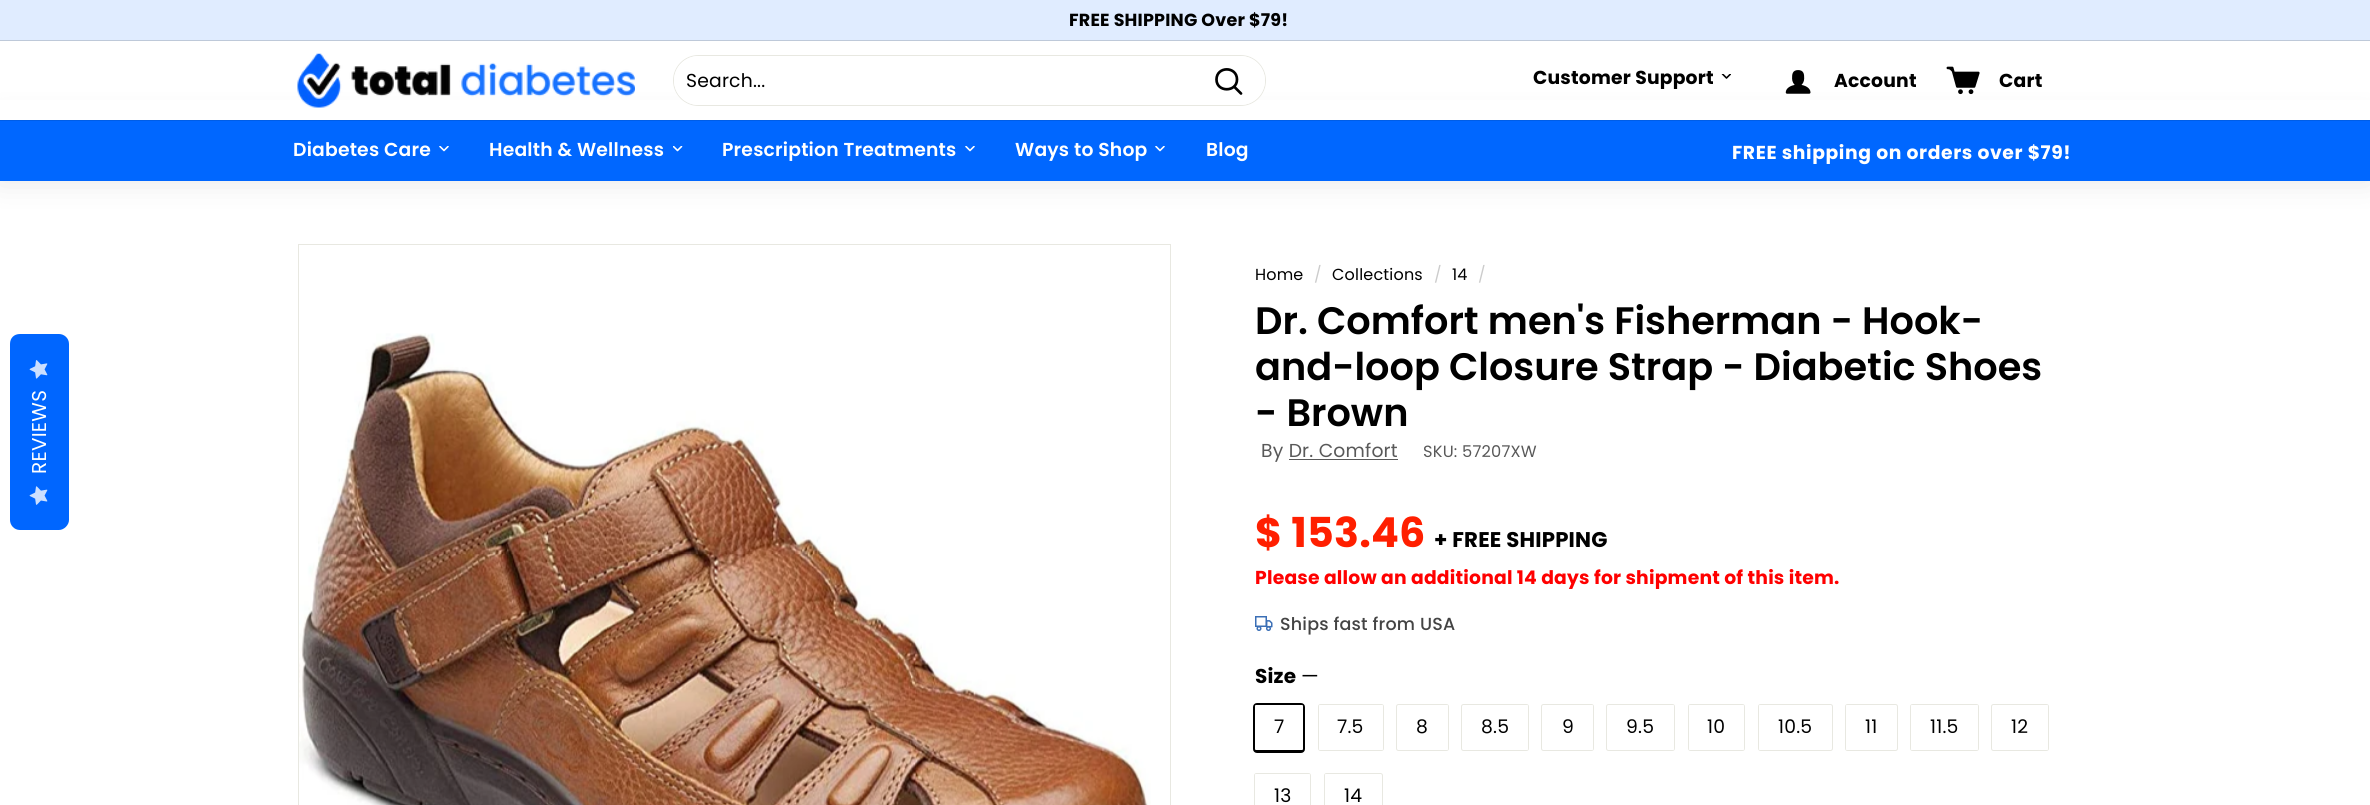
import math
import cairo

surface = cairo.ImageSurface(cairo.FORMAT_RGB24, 2370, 805)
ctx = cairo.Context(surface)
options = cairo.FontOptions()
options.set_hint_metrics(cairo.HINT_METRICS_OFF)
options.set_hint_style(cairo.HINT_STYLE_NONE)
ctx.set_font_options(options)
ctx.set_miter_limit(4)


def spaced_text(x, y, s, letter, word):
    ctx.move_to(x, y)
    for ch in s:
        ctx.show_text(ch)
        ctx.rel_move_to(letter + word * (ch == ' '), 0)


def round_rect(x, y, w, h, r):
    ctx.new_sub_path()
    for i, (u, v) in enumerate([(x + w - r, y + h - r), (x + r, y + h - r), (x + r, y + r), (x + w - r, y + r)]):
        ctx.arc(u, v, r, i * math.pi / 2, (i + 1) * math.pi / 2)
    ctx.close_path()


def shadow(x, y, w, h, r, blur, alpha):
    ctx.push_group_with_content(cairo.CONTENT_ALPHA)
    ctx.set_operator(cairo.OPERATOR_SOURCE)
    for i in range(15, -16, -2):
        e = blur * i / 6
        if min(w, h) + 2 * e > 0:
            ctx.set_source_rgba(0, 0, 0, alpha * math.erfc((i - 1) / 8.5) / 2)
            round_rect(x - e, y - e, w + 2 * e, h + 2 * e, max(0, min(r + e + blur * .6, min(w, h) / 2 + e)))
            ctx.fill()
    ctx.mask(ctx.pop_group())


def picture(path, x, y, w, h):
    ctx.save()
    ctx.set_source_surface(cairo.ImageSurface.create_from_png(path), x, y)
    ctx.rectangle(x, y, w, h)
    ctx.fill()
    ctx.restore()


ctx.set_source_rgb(1, 1, 1)
ctx.paint()
ctx.set_source_rgb(0, 0.4, 1)
ctx.new_path()
ctx.move_to(10, 520)
ctx.line_to(10, 344)
ctx.curve_to(10, 338, 14, 334, 20, 334)
ctx.line_to(59, 334)
ctx.curve_to(64, 334, 69, 338, 69, 344)
ctx.line_to(69, 520)
ctx.curve_to(69, 525, 64, 530, 59, 530)
ctx.line_to(20, 530)
ctx.curve_to(14, 530, 10, 525, 10, 520)
ctx.close_path()
ctx.fill()
picture("img1.png", 29, 360, 19, 19)
ctx.select_font_face("Poppins")
ctx.set_font_size(20)
ctx.set_source_rgb(1, 1, 1)
ctx.save()
ctx.translate(46, 474)
ctx.rotate(-90 * math.pi / 180)
spaced_text(0, 0, "REVIEWS", 0.25, 0)
ctx.restore()
picture("img2.png", 29, 486, 19, 19)
ctx.set_source_rgb(0.878, 0.925, 1)
ctx.rectangle(0, 0, 2370, 40)
ctx.fill()
ctx.select_font_face("Poppins", cairo.FONT_SLANT_NORMAL, cairo.FONT_WEIGHT_BOLD)
ctx.set_font_size(17.5)
ctx.set_source_rgb(0, 0, 0)
spaced_text(1069, 26, "FREE SHIPPING Over $79!", 0.2, 0)
ctx.set_source_rgb(0.745, 0.788, 0.851)
ctx.rectangle(0, 40, 2370, 1)
ctx.fill()
ctx.set_source_rgb(0, 0, 0)
shadow(0, 120, 2370, 61, 0, 15.5, 0.1)
ctx.set_source_rgb(1, 1, 1)
ctx.rectangle(0, 100, 2370, 20)
ctx.fill()
picture("img3.png", 297, 53, 338, 55)
round_rect(673.5, 55.5, 592, 50, 25)
ctx.set_source_rgb(0.91, 0.91, 0.882)
ctx.set_line_width(1)
ctx.stroke()
ctx.set_source_rgb(1, 1, 1)
round_rect(674, 56, 591, 49, 24.5)
ctx.fill()
ctx.select_font_face("Poppins")
ctx.set_font_size(18.75)
ctx.set_source_rgb(0, 0, 0)
spaced_text(686, 87, "Search...", 0.2, 0)
ctx.new_path()
ctx.move_to(1237, 79.5)
ctx.curve_to(1237, 92.5, 1216.5, 92.5, 1216.5, 79.5)
ctx.curve_to(1216.5, 66, 1237, 66, 1237, 79.5)
ctx.close_path()
ctx.move_to(1241, 93.5)
ctx.line_to(1234, 86.5)
ctx.set_line_width(2.7)
ctx.set_line_cap(cairo.LINE_CAP_ROUND)
ctx.set_line_join(cairo.LINE_JOIN_ROUND)
ctx.stroke()
ctx.select_font_face("Poppins", cairo.FONT_SLANT_NORMAL, cairo.FONT_WEIGHT_BOLD)
spaced_text(1533, 84, "Customer Support", 0.2, 0)
ctx.save()
ctx.rectangle(1721, 74, 10, 10)
ctx.clip()
ctx.new_path()
ctx.move_to(1722.5, 74)
ctx.line_to(1726.5, 78)
ctx.line_to(1730.5, 74)
ctx.set_line_width(1.6)
ctx.stroke()
ctx.restore()
picture("img4.png", 1785, 70, 26, 24)
spaced_text(1834, 87, "Account", 0.2, 0)
picture("img5.png", 1946, 66, 34, 29)
spaced_text(1999, 87, "Cart", 0.2, 0)
ctx.set_source_rgb(0, 0.404, 1)
ctx.rectangle(0, 121, 2370, 60)
ctx.fill()
ctx.set_source_rgb(0, 0.365, 0.902)
ctx.rectangle(0, 120, 2370, 1)
ctx.fill()
ctx.select_font_face("Poppins SemiBold")
ctx.set_source_rgb(1, 1, 1)
spaced_text(293, 156, "Diabetes Care", 0.2, 0)
ctx.save()
ctx.rectangle(439, 146, 10, 10)
ctx.clip()
ctx.new_path()
ctx.move_to(440, 146.5)
ctx.line_to(444, 150.5)
ctx.line_to(448, 146.5)
ctx.set_line_width(1.6)
ctx.stroke()
ctx.restore()
spaced_text(489, 156, "Health & Wellness", 0.2, 0)
ctx.save()
ctx.rectangle(673, 146, 10, 10)
ctx.clip()
ctx.new_path()
ctx.move_to(673.5, 146.5)
ctx.line_to(677.5, 150.5)
ctx.line_to(681.5, 146.5)
ctx.set_line_width(1.6)
ctx.stroke()
ctx.restore()
spaced_text(722, 156, "Prescription Treatments", 0.2, 0)
ctx.save()
ctx.rectangle(965, 146, 10, 10)
ctx.clip()
ctx.new_path()
ctx.move_to(966, 146.5)
ctx.line_to(970, 150.5)
ctx.line_to(974, 146.5)
ctx.set_line_width(1.6)
ctx.stroke()
ctx.restore()
spaced_text(1015, 156, "Ways to Shop", 0.2, 0)
ctx.save()
ctx.rectangle(1155, 146, 10, 10)
ctx.clip()
ctx.new_path()
ctx.move_to(1156, 146.5)
ctx.line_to(1160, 150.5)
ctx.line_to(1164, 146.5)
ctx.set_line_width(1.6)
ctx.stroke()
ctx.restore()
spaced_text(1206, 156, "Blog", 0.2, 0)
ctx.select_font_face("Poppins", cairo.FONT_SLANT_NORMAL, cairo.FONT_WEIGHT_BOLD)
spaced_text(1732, 159, "FREE shipping on orders over $79!", 0.6, 0)
ctx.rectangle(298.5, 244.5, 872, 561)
ctx.set_source_rgb(0.91, 0.91, 0.882)
ctx.set_line_width(1)
ctx.set_line_cap(cairo.LINE_CAP_BUTT)
ctx.set_line_join(cairo.LINE_JOIN_MITER)
ctx.stroke()
picture("img6.png", 299, 333, 852, 472)
ctx.select_font_face("Poppins")
ctx.set_font_size(16)
ctx.set_source_rgb(0, 0, 0)
spaced_text(1255, 280, "Home", 0.2, 0)
ctx.set_source_rgb(0.8, 0.8, 0.8)
spaced_text(1314, 280, "/", 0.2, 0)
ctx.set_source_rgb(0, 0, 0)
spaced_text(1332, 280, "Collections", 0.2, 0)
ctx.set_source_rgb(0.8, 0.8, 0.8)
spaced_text(1434, 280, "/", 0.2, 0)
ctx.set_source_rgb(0, 0, 0)
spaced_text(1452, 280, "14", 0.2, 0)
ctx.set_source_rgb(0.8, 0.8, 0.8)
spaced_text(1478, 280, "/", 0.2, 0)
ctx.select_font_face("Poppins SemiBold")
ctx.set_font_size(38.25)
ctx.set_source_rgb(0, 0, 0)
ctx.move_to(1255, 334)
ctx.show_text("Dr. Comfort men's Fisherman - Hook-")
ctx.move_to(1255, 380)
ctx.show_text("and-loop Closure Strap - Diabetic Shoes")
ctx.move_to(1255, 426)
ctx.show_text("- Brown")
ctx.select_font_face("Poppins")
ctx.set_font_size(18.75)
ctx.set_source_rgb(0.349, 0.349, 0.349)
spaced_text(1261, 457, "By Dr. Comfort", 0.2, 0)
ctx.rectangle(1289, 459, 109, 1)
ctx.fill()
ctx.set_font_size(16.25)
spaced_text(1423, 457, "SKU: 57207XW", 0.2, 0)
ctx.select_font_face("Poppins", cairo.FONT_SLANT_NORMAL, cairo.FONT_WEIGHT_BOLD)
ctx.set_font_size(41.25)
ctx.set_source_rgb(1, 0.122, 0)
spaced_text(1255, 547, "$ 153.46", 0.2, 0)
ctx.set_font_size(21.25)
ctx.set_source_rgb(0, 0, 0)
spaced_text(1434, 547, "+ FREE SHIPPING", 0.2, 0)
ctx.set_font_size(18.75)
ctx.set_source_rgb(1, 0, 0)
spaced_text(1255, 584, "Please allow an additional 14 days for shipment of this item.", 0.2, 0)
picture("img7.png", 1255, 616, 18, 15)
ctx.select_font_face("Poppins Medium")
ctx.set_font_size(17.5)
ctx.set_source_rgb(0.267, 0.267, 0.267)
spaced_text(1280, 630, "Ships fast from USA", 0.2, 0)
ctx.select_font_face("Poppins", cairo.FONT_SLANT_NORMAL, cairo.FONT_WEIGHT_BOLD)
ctx.set_font_size(20)
ctx.set_source_rgb(0, 0, 0)
spaced_text(1255, 683, "Size", 0.2, 0)
ctx.select_font_face("Poppins")
ctx.move_to(1301, 683)
ctx.show_text("—")
round_rect(1254.5, 704.5, 49, 47, 2.5)
ctx.set_line_width(3)
ctx.stroke()
ctx.set_source_rgb(1, 1, 1)
round_rect(1255, 705, 48, 45, 1)
ctx.fill()
ctx.set_font_size(18.75)
ctx.set_source_rgb(0, 0, 0)
spaced_text(1274, 733, "7", 0.2, 0)
round_rect(1318.5, 704.5, 65, 46, 2)
ctx.set_source_rgb(0.91, 0.91, 0.882)
ctx.set_line_width(1)
ctx.stroke()
ctx.set_source_rgb(1, 1, 1)
round_rect(1319, 705, 64, 45, 1)
ctx.fill()
ctx.set_source_rgb(0, 0, 0)
spaced_text(1337, 733, "7.5", 0.2, 0)
round_rect(1396.5, 704.5, 52, 46, 2)
ctx.set_source_rgb(0.91, 0.91, 0.882)
ctx.stroke()
ctx.set_source_rgb(1, 1, 1)
round_rect(1398, 705, 50, 45, 1)
ctx.fill()
ctx.set_source_rgb(0, 0, 0)
spaced_text(1416, 733, "8", 0.2, 0)
round_rect(1461.5, 704.5, 67, 46, 2)
ctx.set_source_rgb(0.91, 0.91, 0.882)
ctx.stroke()
ctx.set_source_rgb(1, 1, 1)
round_rect(1463, 705, 65, 45, 1)
ctx.fill()
ctx.set_source_rgb(0, 0, 0)
spaced_text(1481, 733, "8.5", 0.2, 0)
round_rect(1541.5, 704.5, 52, 46, 2)
ctx.set_source_rgb(0.91, 0.91, 0.882)
ctx.stroke()
ctx.set_source_rgb(1, 1, 1)
round_rect(1543, 705, 50, 45, 1)
ctx.fill()
ctx.set_source_rgb(0, 0, 0)
spaced_text(1562, 733, "9", 0.2, 0)
round_rect(1606.5, 704.5, 68, 46, 2)
ctx.set_source_rgb(0.91, 0.91, 0.882)
ctx.stroke()
ctx.set_source_rgb(1, 1, 1)
round_rect(1608, 705, 66, 45, 1)
ctx.fill()
ctx.set_source_rgb(0, 0, 0)
spaced_text(1626, 733, "9.5", 0.2, 0)
round_rect(1688.5, 704.5, 56, 46, 2)
ctx.set_source_rgb(0.91, 0.91, 0.882)
ctx.stroke()
ctx.set_source_rgb(1, 1, 1)
round_rect(1689, 705, 55, 45, 1)
ctx.fill()
ctx.set_source_rgb(0, 0, 0)
spaced_text(1707, 733, "10", 0.2, 0)
round_rect(1758.5, 704.5, 74, 46, 2)
ctx.set_source_rgb(0.91, 0.91, 0.882)
ctx.stroke()
ctx.set_source_rgb(1, 1, 1)
round_rect(1759, 705, 72, 45, 1)
ctx.fill()
ctx.set_source_rgb(0, 0, 0)
spaced_text(1778, 733, "10.5", 0.2, 0)
round_rect(1845.5, 704.5, 52, 46, 2)
ctx.set_source_rgb(0.91, 0.91, 0.882)
ctx.stroke()
ctx.set_source_rgb(1, 1, 1)
round_rect(1846, 705, 50, 45, 1)
ctx.fill()
ctx.set_source_rgb(0, 0, 0)
spaced_text(1865, 733, "11", 0.2, 0)
round_rect(1910.5, 704.5, 68, 46, 2)
ctx.set_source_rgb(0.91, 0.91, 0.882)
ctx.stroke()
ctx.set_source_rgb(1, 1, 1)
round_rect(1911, 705, 67, 45, 1)
ctx.fill()
ctx.set_source_rgb(0, 0, 0)
spaced_text(1930, 733, "11.5", 0.2, 0)
round_rect(1991.5, 704.5, 57, 46, 2)
ctx.set_source_rgb(0.91, 0.91, 0.882)
ctx.stroke()
ctx.set_source_rgb(1, 1, 1)
round_rect(1993, 705, 55, 45, 1)
ctx.fill()
ctx.set_source_rgb(0, 0, 0)
spaced_text(2011, 733, "12", 0.2, 0)
round_rect(1254.5, 773.5, 56, 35, 2)
ctx.set_source_rgb(0.91, 0.91, 0.882)
ctx.stroke()
ctx.set_source_rgb(1, 1, 1)
round_rect(1255, 774, 55, 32, 1)
ctx.fill()
ctx.set_source_rgb(0, 0, 0)
spaced_text(1274, 802, "13", 0.2, 0)
round_rect(1324.5, 773.5, 58, 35, 2)
ctx.set_source_rgb(0.91, 0.91, 0.882)
ctx.stroke()
ctx.set_source_rgb(1, 1, 1)
round_rect(1325, 774, 56, 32, 1)
ctx.fill()
ctx.set_source_rgb(0, 0, 0)
spaced_text(1344, 802, "14", 0.2, 0)
surface.write_to_png("page.png")
